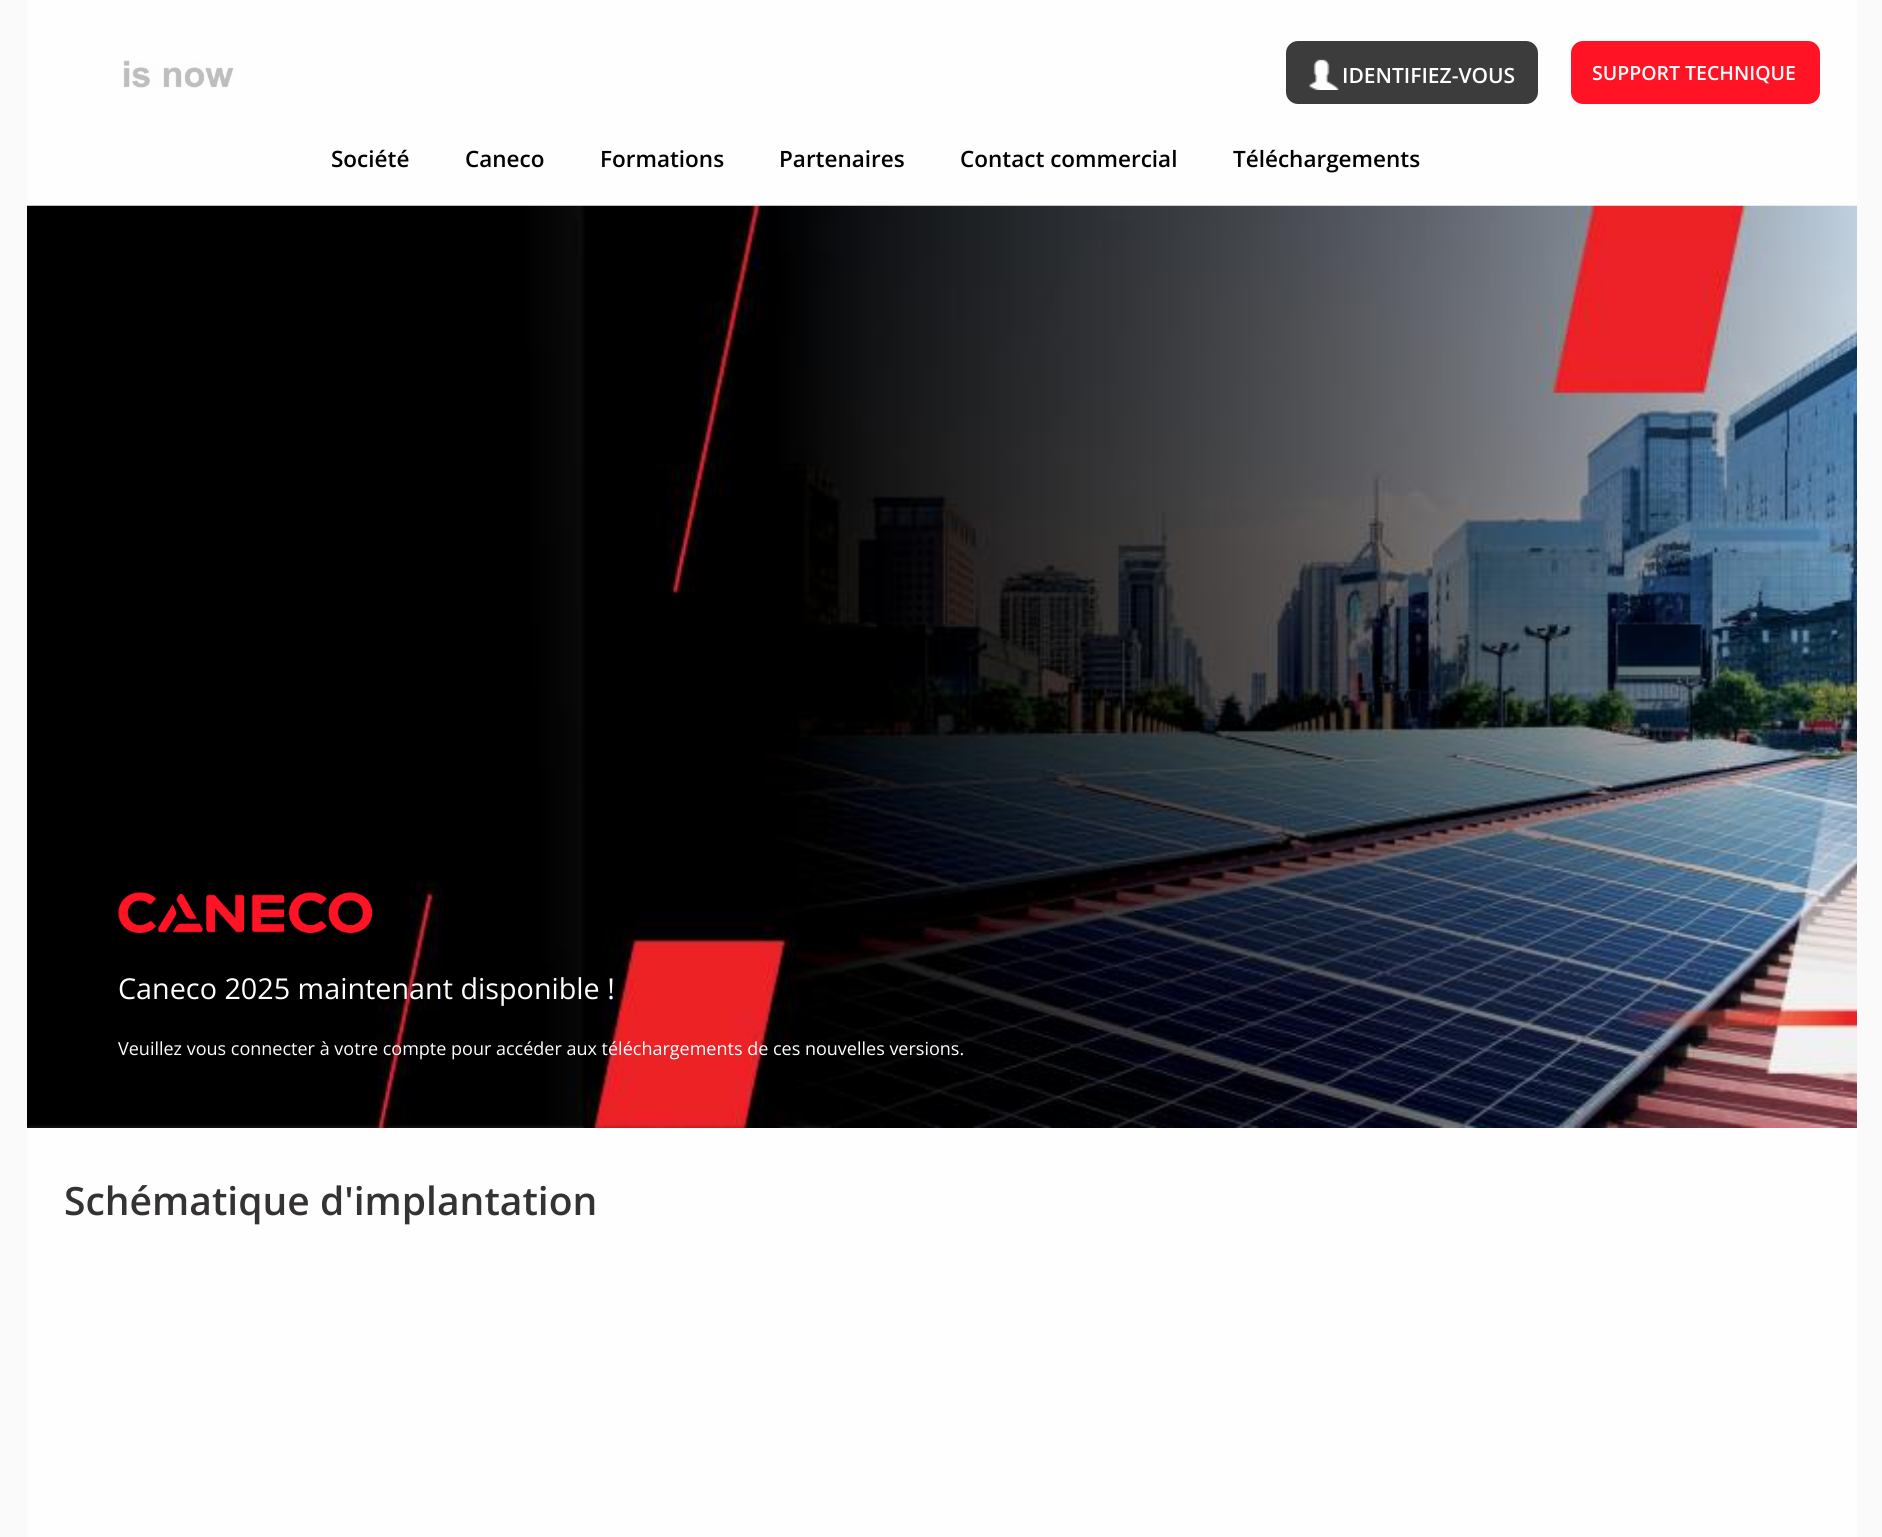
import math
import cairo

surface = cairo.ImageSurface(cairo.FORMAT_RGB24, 1882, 1537)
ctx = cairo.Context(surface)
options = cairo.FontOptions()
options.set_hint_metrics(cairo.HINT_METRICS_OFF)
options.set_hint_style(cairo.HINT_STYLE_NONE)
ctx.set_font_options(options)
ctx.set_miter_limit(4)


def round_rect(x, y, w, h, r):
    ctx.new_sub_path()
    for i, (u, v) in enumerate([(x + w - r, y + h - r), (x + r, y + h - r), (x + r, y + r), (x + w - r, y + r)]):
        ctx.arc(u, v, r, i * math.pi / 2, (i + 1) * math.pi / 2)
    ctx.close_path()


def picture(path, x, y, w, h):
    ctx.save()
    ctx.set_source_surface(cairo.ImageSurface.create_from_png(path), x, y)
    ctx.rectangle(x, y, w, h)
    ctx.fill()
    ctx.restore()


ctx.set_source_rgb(0.98, 0.98, 0.98)
ctx.paint()
ctx.set_source_rgb(0.996, 0.996, 0.996)
ctx.rectangle(27, 0, 1830, 1537)
ctx.fill()
picture("img1.png", 123, 60, 111, 28)
ctx.set_source_rgb(0.235, 0.235, 0.235)
round_rect(1286, 41, 252, 63, 12)
ctx.fill()
picture("img2.png", 1309, 59, 30, 31)
ctx.select_font_face("Open Sans SemiBold")
ctx.set_font_size(21)
ctx.set_source_rgb(1, 1, 1)
ctx.move_to(1342, 83)
ctx.show_text("IDENTIFIEZ-VOUS")
ctx.set_source_rgb(1, 0.075, 0.141)
round_rect(1571, 41, 249, 63, 12)
ctx.fill()
ctx.set_font_size(19.5)
ctx.set_source_rgb(1, 1, 1)
ctx.move_to(1592, 80)
ctx.show_text("SUPPORT TECHNIQUE")
ctx.set_font_size(22.5)
ctx.set_source_rgb(0, 0, 0)
ctx.move_to(331, 167)
ctx.show_text("Société")
ctx.move_to(465, 167)
ctx.show_text("Caneco")
ctx.move_to(600, 167)
ctx.show_text("Formations")
ctx.move_to(779, 167)
ctx.show_text("Partenaires")
ctx.move_to(960, 167)
ctx.show_text("Contact commercial")
ctx.move_to(1233, 167)
ctx.show_text("Téléchargements")
picture("img3.png", 27, 205, 1830, 923)
picture("img4.png", 118, 892, 255, 41)
ctx.select_font_face("Open Sans")
ctx.set_font_size(28.75)
ctx.set_source_rgb(1, 1, 1)
ctx.move_to(118, 999)
ctx.show_text("Caneco 2025 maintenant disponible !")
ctx.set_font_size(18)
ctx.move_to(118, 1055)
ctx.show_text("Veuillez vous connecter à votre compte pour accéder aux téléchargements de ces nouvelles versions.")
ctx.select_font_face("Open Sans SemiBold")
ctx.set_font_size(39)
ctx.set_source_rgb(0.208, 0.196, 0.2)
ctx.move_to(64, 1215)
ctx.show_text("Schématique")
ctx.move_to(320, 1215)
ctx.show_text("d'implantation")
surface.write_to_png("page.png")
